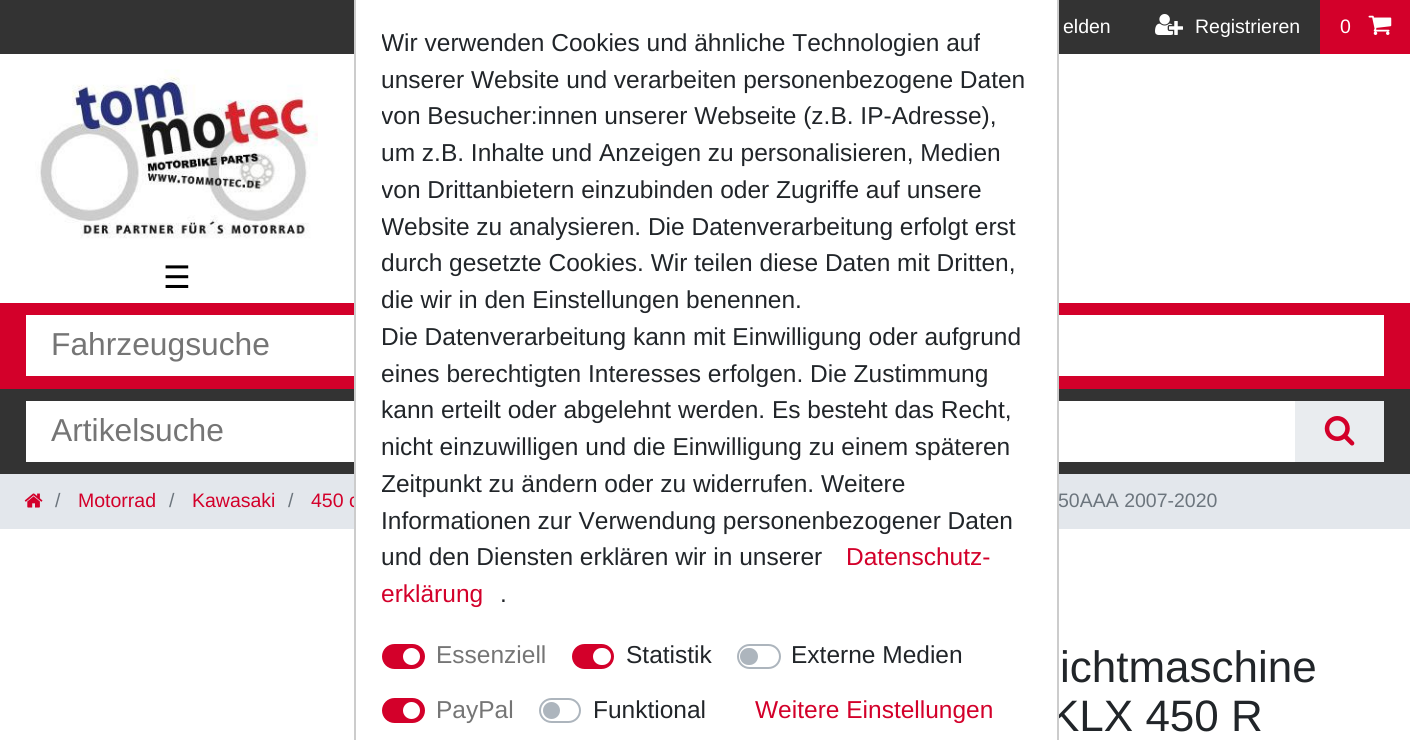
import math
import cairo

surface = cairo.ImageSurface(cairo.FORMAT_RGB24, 1410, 740)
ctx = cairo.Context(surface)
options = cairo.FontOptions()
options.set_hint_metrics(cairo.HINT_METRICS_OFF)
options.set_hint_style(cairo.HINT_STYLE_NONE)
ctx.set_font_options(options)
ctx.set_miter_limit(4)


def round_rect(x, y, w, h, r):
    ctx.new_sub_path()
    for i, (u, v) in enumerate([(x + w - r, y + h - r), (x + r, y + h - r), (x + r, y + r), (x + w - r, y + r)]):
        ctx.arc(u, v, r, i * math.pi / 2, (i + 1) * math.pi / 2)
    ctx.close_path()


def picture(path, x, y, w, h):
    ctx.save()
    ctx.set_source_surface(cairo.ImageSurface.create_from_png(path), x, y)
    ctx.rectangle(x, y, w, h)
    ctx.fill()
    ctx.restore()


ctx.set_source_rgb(1, 1, 1)
ctx.paint()
ctx.set_source_rgb(0.2, 0.2, 0.2)
ctx.rectangle(0, 0, 1320, 54)
ctx.fill()
ctx.select_font_face("Liberation Sans")
ctx.set_font_size(19.5)
ctx.set_source_rgb(1, 1, 1)
ctx.move_to(1063, 33)
ctx.show_text("elden")
picture("img1.png", 1155, 14, 28, 21)
ctx.move_to(1195, 33)
ctx.show_text("Registrieren")
ctx.set_source_rgb(0.827, 0, 0.165)
ctx.rectangle(1320, 0, 90, 54)
ctx.fill()
ctx.set_source_rgb(1, 1, 1)
ctx.move_to(1340, 33)
ctx.show_text("0")
picture("img2.png", 1368, 15, 24, 20)
picture("img3.png", 35, 69, 283, 170)
ctx.select_font_face("DejaVu Sans")
ctx.set_font_size(31)
ctx.set_source_rgb(0, 0, 0)
ctx.move_to(163, 288)
ctx.show_text("☰")
ctx.set_source_rgb(0.827, 0, 0.165)
ctx.rectangle(0, 303, 1410, 86)
ctx.fill()
ctx.set_source_rgb(1, 1, 1)
ctx.rectangle(26, 315, 1358, 61)
ctx.fill()
ctx.select_font_face("Liberation Sans")
ctx.set_font_size(31.75)
ctx.set_source_rgb(0.459, 0.459, 0.459)
ctx.move_to(51, 355)
ctx.show_text("Fahrzeugsuche")
ctx.set_source_rgb(0.2, 0.2, 0.2)
ctx.rectangle(0, 389, 1410, 85)
ctx.fill()
ctx.set_source_rgb(1, 1, 1)
ctx.rectangle(26, 401, 1269, 61)
ctx.fill()
ctx.set_source_rgb(0.459, 0.459, 0.459)
ctx.move_to(51, 441)
ctx.show_text("Artikelsuche")
ctx.set_source_rgb(0.914, 0.925, 0.937)
ctx.rectangle(1295, 401, 89, 61)
ctx.fill()
picture("img4.png", 1324, 416, 31, 30)
ctx.set_source_rgb(0.89, 0.906, 0.922)
ctx.rectangle(0, 474, 1410, 55)
ctx.fill()
picture("img5.png", 24, 493, 19, 15)
ctx.set_font_size(19.5)
ctx.set_source_rgb(0.424, 0.459, 0.49)
ctx.move_to(55, 507)
ctx.show_text("/")
ctx.set_source_rgb(0.827, 0, 0.165)
ctx.move_to(78, 507)
ctx.show_text("Motorrad")
ctx.set_source_rgb(0.424, 0.459, 0.49)
ctx.move_to(169, 507)
ctx.show_text("/")
ctx.set_source_rgb(0.827, 0, 0.165)
ctx.move_to(192, 507)
ctx.show_text("Kawasaki")
ctx.set_source_rgb(0.424, 0.459, 0.49)
ctx.move_to(288, 507)
ctx.show_text("/")
ctx.set_source_rgb(0.827, 0, 0.165)
ctx.move_to(311, 507)
ctx.show_text("450 c")
ctx.set_source_rgb(0.424, 0.459, 0.49)
ctx.move_to(1058, 507)
ctx.show_text("50AAA 2007-2020")
ctx.set_font_size(44)
ctx.set_source_rgb(0.129, 0.145, 0.161)
ctx.move_to(1050, 731)
ctx.show_text("KLX 450 R")
ctx.set_source_rgb(1, 1, 1)
ctx.rectangle(356, 0, 701, 731)
ctx.fill()
ctx.set_source_rgb(0.8, 0.8, 0.8)
ctx.rectangle(1057, 0, 2, 740)
ctx.fill()
ctx.rectangle(354, 0, 2, 740)
ctx.fill()
ctx.save()
ctx.rectangle(382, 2, 649, 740)
ctx.clip()
ctx.set_font_size(24.5)
ctx.set_source_rgb(0.129, 0.145, 0.161)
ctx.move_to(381, 51)
ctx.show_text("Wir verwenden Cookies und ähnliche Technologien auf")
ctx.restore()
ctx.set_font_size(24.5)
ctx.set_source_rgb(0.129, 0.145, 0.161)
ctx.move_to(381, 88)
ctx.show_text("unserer Website und verarbeiten personenbezogene Daten")
ctx.save()
ctx.rectangle(382, 2, 649, 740)
ctx.clip()
ctx.move_to(381, 124)
ctx.show_text("von Besucher:innen unserer Webseite (z.B. IP-Adresse),")
ctx.restore()
ctx.move_to(381, 161)
ctx.show_text("um z.B. Inhalte und Anzeigen zu personalisieren, Medien")
ctx.save()
ctx.rectangle(382, 2, 649, 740)
ctx.clip()
ctx.move_to(381, 198)
ctx.show_text("von Drittanbietern einzubinden oder Zugriffe auf unsere")
ctx.move_to(381, 235)
ctx.show_text("Website zu analysieren. Die Datenverarbeitung erfolgt erst")
ctx.move_to(381, 271)
ctx.show_text("durch gesetzte Cookies. Wir teilen diese Daten mit Dritten,")
ctx.move_to(381, 308)
ctx.show_text("die wir in den Einstellungen benennen.")
ctx.restore()
ctx.move_to(381, 345)
ctx.show_text("Die Datenverarbeitung kann mit Einwilligung oder aufgrund")
ctx.save()
ctx.rectangle(382, 2, 649, 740)
ctx.clip()
ctx.move_to(381, 382)
ctx.show_text("eines berechtigten Interesses erfolgen. Die Zustimmung")
ctx.restore()
ctx.move_to(381, 418)
ctx.show_text("kann erteilt oder abgelehnt werden. Es besteht das Recht,")
ctx.move_to(381, 455)
ctx.show_text("nicht einzuwilligen und die Einwilligung zu einem späteren")
ctx.save()
ctx.rectangle(382, 2, 649, 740)
ctx.clip()
ctx.move_to(381, 492)
ctx.show_text("Zeitpunkt zu ändern oder zu widerrufen. Weitere")
ctx.restore()
ctx.move_to(381, 529)
ctx.show_text("Informationen zur Verwendung personenbezogener Daten")
ctx.move_to(381, 565)
ctx.show_text("und den Diensten erklären wir in unserer")
ctx.set_source_rgb(0.827, 0, 0.165)
ctx.move_to(846, 565)
ctx.show_text("Datenschutz-")
ctx.save()
ctx.rectangle(382, 2, 649, 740)
ctx.clip()
ctx.move_to(381, 602)
ctx.show_text("erklärung")
ctx.restore()
ctx.set_source_rgb(0.129, 0.145, 0.161)
ctx.move_to(500, 602)
ctx.show_text(".")
ctx.set_source_rgb(0.827, 0, 0.165)
round_rect(383, 645, 41, 23, 11.5)
ctx.fill_preserve()
ctx.stroke()
ctx.set_source_rgb(0.459, 0.459, 0.459)
ctx.move_to(436, 663)
ctx.show_text("Essenziell")
ctx.set_source_rgb(1, 1, 1)
ctx.new_path()
ctx.arc(411.5, 656.5, 8.5, 0, 2 * math.pi)
ctx.fill()
ctx.set_source_rgb(0.827, 0, 0.165)
round_rect(573, 645, 40, 23, 11.5)
ctx.fill_preserve()
ctx.stroke()
ctx.set_source_rgb(0.129, 0.145, 0.161)
ctx.move_to(626, 663)
ctx.show_text("Statistik")
ctx.set_source_rgb(1, 1, 1)
round_rect(593, 648, 18, 17, 8.5)
ctx.fill()
round_rect(738, 645, 42, 23, 11.5)
ctx.set_source_rgb(0.678, 0.71, 0.741)
ctx.stroke()
ctx.set_source_rgb(0.129, 0.145, 0.161)
ctx.move_to(791, 663)
ctx.show_text("Externe Medien")
ctx.set_source_rgb(0.678, 0.71, 0.741)
round_rect(740, 648, 18, 17, 8.5)
ctx.fill()
ctx.set_source_rgb(0.827, 0, 0.165)
round_rect(383, 699, 41, 23, 11.5)
ctx.fill_preserve()
ctx.stroke()
ctx.set_source_rgb(0.459, 0.459, 0.459)
ctx.move_to(436, 718)
ctx.show_text("PayPal")
ctx.set_source_rgb(1, 1, 1)
ctx.new_path()
ctx.arc(411.5, 710.5, 8.5, 0, 2 * math.pi)
ctx.fill()
round_rect(540, 699, 40, 23, 11.5)
ctx.set_source_rgb(0.678, 0.71, 0.741)
ctx.stroke()
ctx.set_source_rgb(0.129, 0.145, 0.161)
ctx.move_to(593, 718)
ctx.show_text("Funktional")
ctx.set_source_rgb(0.678, 0.71, 0.741)
ctx.new_path()
ctx.arc(551.5, 710.5, 8.5, 0, 2 * math.pi)
ctx.fill()
ctx.set_source_rgb(0.827, 0, 0.165)
ctx.move_to(755, 718)
ctx.show_text("Weitere Einstellungen")
ctx.set_font_size(44)
ctx.set_source_rgb(0.129, 0.145, 0.161)
ctx.move_to(1060, 682)
ctx.show_text("ichtmaschine")
surface.write_to_png("page.png")
